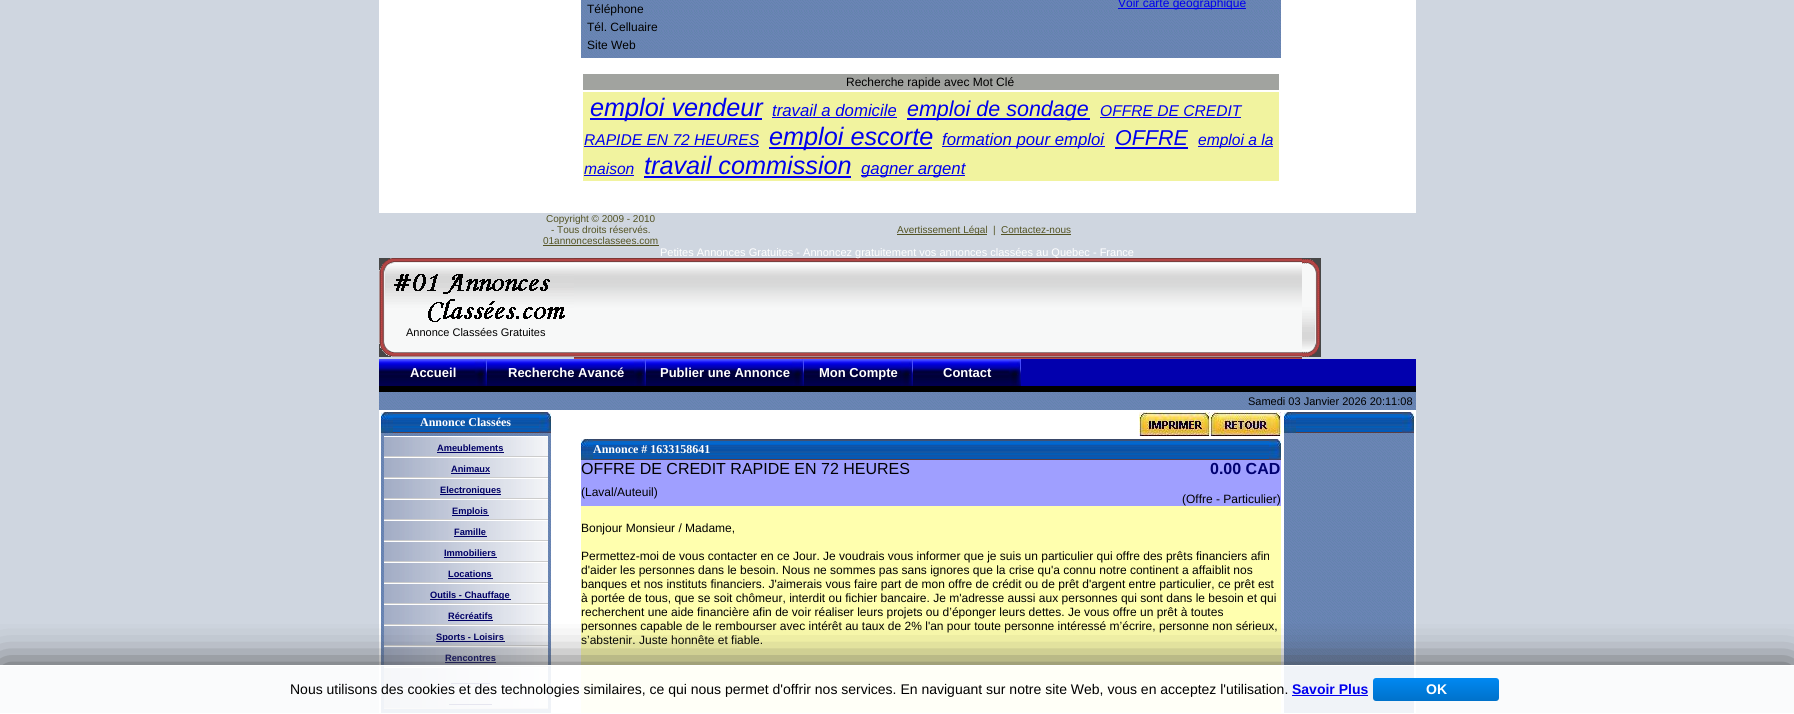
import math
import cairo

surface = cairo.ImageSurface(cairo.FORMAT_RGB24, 1794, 714)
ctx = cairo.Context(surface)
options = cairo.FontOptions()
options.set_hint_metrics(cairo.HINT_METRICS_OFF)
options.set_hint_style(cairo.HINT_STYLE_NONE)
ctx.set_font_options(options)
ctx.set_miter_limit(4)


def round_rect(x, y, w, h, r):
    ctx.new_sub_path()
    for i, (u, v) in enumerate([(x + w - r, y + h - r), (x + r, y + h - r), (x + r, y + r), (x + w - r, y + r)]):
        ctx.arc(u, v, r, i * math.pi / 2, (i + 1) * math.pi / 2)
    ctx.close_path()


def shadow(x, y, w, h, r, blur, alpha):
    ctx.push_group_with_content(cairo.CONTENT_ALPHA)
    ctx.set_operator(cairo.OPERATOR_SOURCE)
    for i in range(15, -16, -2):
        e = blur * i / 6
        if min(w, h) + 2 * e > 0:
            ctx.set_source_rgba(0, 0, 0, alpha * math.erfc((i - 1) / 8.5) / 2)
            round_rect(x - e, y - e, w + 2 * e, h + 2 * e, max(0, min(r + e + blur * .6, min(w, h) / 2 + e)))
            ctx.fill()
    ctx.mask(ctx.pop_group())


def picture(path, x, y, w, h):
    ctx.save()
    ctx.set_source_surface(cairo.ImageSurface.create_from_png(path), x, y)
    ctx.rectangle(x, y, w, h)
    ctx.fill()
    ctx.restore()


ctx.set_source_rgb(0.812, 0.839, 0.878)
ctx.paint()
ctx.set_source_rgb(1, 1, 1)
ctx.rectangle(379, 0, 1037, 213)
ctx.fill()
picture("img1.png", 581, 0, 700, 58)
ctx.select_font_face("Liberation Sans")
ctx.set_font_size(12)
ctx.set_source_rgb(0, 0, 0)
ctx.move_to(587, 13)
ctx.show_text("Téléphone")
ctx.move_to(587, 31)
ctx.show_text("Tél. Celluaire")
ctx.move_to(587, 49)
ctx.show_text("Site Web")
ctx.set_source_rgb(0, 0, 0.933)
ctx.rectangle(1118, 8, 128, 1)
ctx.fill()
ctx.move_to(1118, 7)
ctx.show_text("Voir carte géographique")
ctx.set_source_rgb(0.631, 0.639, 0.624)
ctx.rectangle(583, 74, 696, 16)
ctx.fill()
ctx.set_source_rgb(0, 0, 0)
ctx.move_to(846, 86)
ctx.show_text("Recherche rapide avec Mot Clé")
ctx.set_source_rgb(0.945, 0.953, 0.624)
ctx.rectangle(583, 92, 696, 89)
ctx.fill()
ctx.set_source_rgb(0, 0, 0.933)
ctx.rectangle(590, 118, 172, 2)
ctx.fill()
ctx.select_font_face("Liberation Sans", cairo.FONT_SLANT_ITALIC)
ctx.set_font_size(25.25)
ctx.move_to(590, 116)
ctx.show_text("emploi vendeur")
ctx.set_font_size(16.75)
ctx.move_to(772, 116)
ctx.show_text("travail a domicile")
ctx.rectangle(772, 117, 125, 1)
ctx.fill()
ctx.rectangle(907, 118, 183, 2)
ctx.fill()
ctx.set_font_size(21.5)
ctx.move_to(907, 116)
ctx.show_text("emploi de sondage")
ctx.set_font_size(15.6)
ctx.move_to(1100, 116)
ctx.show_text("OFFRE DE CREDIT")
ctx.rectangle(1100, 117, 141, 1)
ctx.fill()
ctx.move_to(584, 145)
ctx.show_text("RAPIDE EN 72 HEURES")
ctx.rectangle(584, 146, 175, 1)
ctx.fill()
ctx.rectangle(769, 147, 163, 2)
ctx.fill()
ctx.set_font_size(25.25)
ctx.move_to(769, 145)
ctx.show_text("emploi escorte")
ctx.rectangle(942, 146, 163, 1)
ctx.fill()
ctx.set_font_size(16.75)
ctx.move_to(942, 145)
ctx.show_text("formation pour emploi")
ctx.set_font_size(21.5)
ctx.move_to(1115, 145)
ctx.show_text("OFFRE")
ctx.rectangle(1115, 147, 73, 2)
ctx.fill()
ctx.rectangle(1198, 146, 75, 1)
ctx.fill()
ctx.set_font_size(15.6)
ctx.move_to(1198, 145)
ctx.show_text("emploi a la")
ctx.move_to(584, 174)
ctx.show_text("maison")
ctx.rectangle(584, 175, 50, 1)
ctx.fill()
ctx.set_font_size(25.25)
ctx.move_to(644, 174)
ctx.show_text("travail commission")
ctx.rectangle(644, 176, 207, 2)
ctx.fill()
ctx.rectangle(861, 175, 104, 1)
ctx.fill()
ctx.set_font_size(16.75)
ctx.move_to(861, 174)
ctx.show_text("gagner argent")
ctx.select_font_face("Liberation Sans")
ctx.set_font_size(10)
ctx.set_source_rgb(0.325, 0.325, 0.137)
ctx.move_to(546, 222)
ctx.show_text("Copyright © 2009 - 2010")
ctx.move_to(551, 233)
ctx.show_text("- Tous droits réservés.")
ctx.move_to(543, 244)
ctx.show_text("01annoncesclassees.com")
ctx.rectangle(543, 245, 116, 1)
ctx.fill()
ctx.rectangle(897, 234, 90, 1)
ctx.fill()
ctx.move_to(897, 233)
ctx.show_text("Avertissement Légal")
ctx.move_to(993, 233)
ctx.show_text("|")
ctx.move_to(1001, 233)
ctx.show_text("Contactez-nous")
ctx.rectangle(1001, 234, 70, 1)
ctx.fill()
picture("img3.png", 574, 258, 728, 101)
ctx.set_font_size(11)
ctx.set_source_rgb(1, 1, 1)
ctx.move_to(660, 256)
ctx.show_text("Petites Annonces Gratuites - Annoncez gratuitement vos annonces classées au Quebec - France")
picture("img2.png", 379, 258, 195, 99)
ctx.set_source_rgb(0, 0, 0)
ctx.move_to(406, 336)
ctx.show_text("Annonce Classées Gratuites")
picture("img4.png", 1302, 258, 19, 99)
ctx.set_source_rgb(0.008, 0, 0.682)
ctx.rectangle(1021, 359, 395, 27)
ctx.fill()
ctx.set_source_rgb(0, 0, 0)
ctx.rectangle(379, 386, 1037, 6)
ctx.fill()
picture("img5.png", 379, 359, 108, 27)
ctx.select_font_face("Liberation Sans", cairo.FONT_SLANT_NORMAL, cairo.FONT_WEIGHT_BOLD)
ctx.set_font_size(13)
ctx.set_source_rgb(1, 1, 1)
ctx.move_to(410, 377)
ctx.show_text("Accueil")
picture("img6.png", 487, 359, 159, 27)
ctx.move_to(508, 377)
ctx.show_text("Recherche Avancé")
picture("img7.png", 646, 359, 158, 27)
ctx.move_to(660, 377)
ctx.show_text("Publier une Annonce")
picture("img8.png", 804, 359, 109, 27)
ctx.move_to(819, 377)
ctx.show_text("Mon Compte")
picture("img9.png", 913, 359, 108, 27)
ctx.move_to(943, 377)
ctx.show_text("Contact")
picture("img10.png", 379, 392, 1037, 18)
ctx.select_font_face("Liberation Sans")
ctx.set_font_size(11)
ctx.set_source_rgb(0, 0, 0)
ctx.move_to(1248, 405)
ctx.show_text("Samedi 03 Janvier 2026 20:11:08")
ctx.set_source_rgb(1, 1, 1)
ctx.rectangle(379, 410, 1037, 303)
ctx.fill()
picture("img11.png", 381, 412, 12, 21)
picture("img12.png", 393, 412, 146, 21)
ctx.select_font_face("Liberation Serif", cairo.FONT_SLANT_NORMAL, cairo.FONT_WEIGHT_BOLD)
ctx.set_font_size(12)
ctx.move_to(420, 426)
ctx.show_text("Annonce Classées")
picture("img13.png", 539, 412, 12, 21)
picture("img14.png", 381, 433, 170, 280)
picture("img15.png", 384, 437, 164, 19)
ctx.rectangle(384, 436, 164, 1)
ctx.fill()
ctx.set_source_rgb(0.8, 0.8, 0.8)
ctx.rectangle(384, 456, 164, 1)
ctx.fill()
ctx.select_font_face("Liberation Sans", cairo.FONT_SLANT_NORMAL, cairo.FONT_WEIGHT_BOLD)
ctx.set_font_size(9.25)
ctx.set_source_rgb(0, 0, 0.4)
ctx.move_to(437, 451)
ctx.show_text("Ameublements")
ctx.rectangle(437, 452, 67, 1)
ctx.fill()
picture("img15.png", 384, 458, 164, 19)
ctx.set_source_rgb(1, 1, 1)
ctx.rectangle(384, 457, 164, 1)
ctx.fill()
ctx.set_source_rgb(0.8, 0.8, 0.8)
ctx.rectangle(384, 477, 164, 1)
ctx.fill()
ctx.set_source_rgb(0, 0, 0.4)
ctx.move_to(451, 472)
ctx.show_text("Animaux")
ctx.rectangle(451, 473, 39, 1)
ctx.fill()
picture("img15.png", 384, 479, 164, 19)
ctx.set_source_rgb(1, 1, 1)
ctx.rectangle(384, 478, 164, 1)
ctx.fill()
ctx.set_source_rgb(0.8, 0.8, 0.8)
ctx.rectangle(384, 498, 164, 1)
ctx.fill()
ctx.set_source_rgb(0, 0, 0.4)
ctx.rectangle(440, 494, 61, 1)
ctx.fill()
ctx.move_to(440, 493)
ctx.show_text("Electroniques")
picture("img15.png", 384, 500, 164, 19)
ctx.set_source_rgb(1, 1, 1)
ctx.rectangle(384, 499, 164, 1)
ctx.fill()
ctx.set_source_rgb(0.8, 0.8, 0.8)
ctx.rectangle(384, 519, 164, 1)
ctx.fill()
ctx.set_source_rgb(0, 0, 0.4)
ctx.rectangle(452, 515, 37, 1)
ctx.fill()
ctx.move_to(452, 514)
ctx.show_text("Emplois")
picture("img15.png", 384, 521, 164, 19)
ctx.set_source_rgb(1, 1, 1)
ctx.rectangle(384, 520, 164, 1)
ctx.fill()
ctx.set_source_rgb(0.8, 0.8, 0.8)
ctx.rectangle(384, 540, 164, 1)
ctx.fill()
ctx.set_source_rgb(0, 0, 0.4)
ctx.move_to(454, 535)
ctx.show_text("Famille")
ctx.rectangle(454, 536, 33, 1)
ctx.fill()
picture("img15.png", 384, 542, 164, 19)
ctx.set_source_rgb(1, 1, 1)
ctx.rectangle(384, 541, 164, 1)
ctx.fill()
ctx.set_source_rgb(0.8, 0.8, 0.8)
ctx.rectangle(384, 561, 164, 1)
ctx.fill()
ctx.set_source_rgb(0, 0, 0.4)
ctx.move_to(444, 556)
ctx.show_text("Immobiliers")
ctx.rectangle(444, 557, 53, 1)
ctx.fill()
picture("img15.png", 384, 563, 164, 19)
ctx.set_source_rgb(1, 1, 1)
ctx.rectangle(384, 562, 164, 1)
ctx.fill()
ctx.set_source_rgb(0.8, 0.8, 0.8)
ctx.rectangle(384, 582, 164, 1)
ctx.fill()
ctx.set_source_rgb(0, 0, 0.4)
ctx.move_to(448, 577)
ctx.show_text("Locations")
ctx.rectangle(448, 578, 45, 1)
ctx.fill()
picture("img15.png", 384, 584, 164, 19)
ctx.set_source_rgb(1, 1, 1)
ctx.rectangle(384, 583, 164, 1)
ctx.fill()
ctx.set_source_rgb(0.8, 0.8, 0.8)
ctx.rectangle(384, 603, 164, 1)
ctx.fill()
ctx.set_source_rgb(0, 0, 0.4)
ctx.rectangle(430, 599, 81, 1)
ctx.fill()
ctx.move_to(430, 598)
ctx.show_text("Outils - Chauffage")
picture("img15.png", 384, 605, 164, 19)
ctx.set_source_rgb(1, 1, 1)
ctx.rectangle(384, 604, 164, 1)
ctx.fill()
ctx.set_source_rgb(0.8, 0.8, 0.8)
ctx.rectangle(384, 624, 164, 1)
ctx.fill()
ctx.set_source_rgb(0, 0, 0.4)
ctx.move_to(448, 619)
ctx.show_text("Récréatifs")
ctx.rectangle(448, 620, 45, 1)
ctx.fill()
picture("img15.png", 384, 626, 164, 19)
ctx.set_source_rgb(1, 1, 1)
ctx.rectangle(384, 625, 164, 1)
ctx.fill()
ctx.set_source_rgb(0.8, 0.8, 0.8)
ctx.rectangle(384, 645, 164, 1)
ctx.fill()
ctx.set_source_rgb(0, 0, 0.4)
ctx.rectangle(436, 641, 69, 1)
ctx.fill()
ctx.move_to(436, 640)
ctx.show_text("Sports - Loisirs")
picture("img16.png", 384, 647, 164, 18)
ctx.set_source_rgb(1, 1, 1)
ctx.rectangle(384, 646, 164, 1)
ctx.fill()
ctx.set_source_rgb(0.8, 0.8, 0.8)
ctx.rectangle(384, 666, 164, 1)
ctx.fill()
ctx.set_source_rgb(0, 0, 0.4)
ctx.move_to(445, 661)
ctx.show_text("Rencontres")
ctx.rectangle(445, 662, 51, 1)
ctx.fill()
picture("img15.png", 384, 668, 164, 19)
ctx.set_source_rgb(1, 1, 1)
ctx.rectangle(384, 667, 164, 1)
ctx.fill()
ctx.set_source_rgb(0.8, 0.8, 0.8)
ctx.rectangle(384, 687, 164, 1)
ctx.fill()
ctx.set_source_rgb(0, 0, 0.4)
ctx.rectangle(451, 683, 39, 1)
ctx.fill()
picture("img15.png", 384, 689, 164, 19)
ctx.set_source_rgb(1, 1, 1)
ctx.rectangle(384, 688, 164, 1)
ctx.fill()
ctx.set_source_rgb(0.8, 0.8, 0.8)
ctx.rectangle(384, 708, 164, 1)
ctx.fill()
ctx.set_source_rgb(0, 0, 0.4)
ctx.rectangle(449, 704, 43, 1)
ctx.fill()
picture("img17.png", 1139, 412, 71, 24)
picture("img18.png", 1210, 412, 71, 24)
picture("img11.png", 581, 439, 12, 21)
picture("img19.png", 593, 439, 676, 21)
ctx.select_font_face("Liberation Serif", cairo.FONT_SLANT_NORMAL, cairo.FONT_WEIGHT_BOLD)
ctx.set_font_size(12)
ctx.set_source_rgb(1, 1, 1)
ctx.move_to(593, 453)
ctx.show_text("Annonce # 1633158641")
picture("img13.png", 1269, 439, 12, 21)
ctx.set_source_rgb(0.624, 0.624, 1)
ctx.rectangle(581, 460, 700, 18)
ctx.fill()
ctx.select_font_face("Liberation Sans")
ctx.set_font_size(16)
ctx.set_source_rgb(0, 0, 0)
ctx.move_to(581, 474)
ctx.show_text("OFFRE DE CREDIT RAPIDE EN 72 HEURES")
ctx.select_font_face("Liberation Sans", cairo.FONT_SLANT_NORMAL, cairo.FONT_WEIGHT_BOLD)
ctx.set_source_rgb(0, 0, 0.443)
ctx.move_to(1210, 474)
ctx.show_text("0.00 CAD")
ctx.set_source_rgb(0.624, 0.624, 1)
ctx.rectangle(581, 478, 700, 28)
ctx.fill()
ctx.select_font_face("Liberation Sans")
ctx.set_font_size(12)
ctx.set_source_rgb(0, 0, 0)
ctx.move_to(581, 496)
ctx.show_text("(Laval/Auteuil)")
ctx.move_to(1182, 503)
ctx.show_text("(Offre - Particulier)")
ctx.set_source_rgb(1, 1, 0.682)
ctx.rectangle(581, 506, 700, 207)
ctx.fill()
ctx.set_source_rgb(0, 0, 0)
ctx.move_to(581, 532)
ctx.show_text("Bonjour Monsieur / Madame,")
ctx.move_to(581, 560)
ctx.show_text("Permettez-moi de vous contacter en ce Jour. Je voudrais vous informer que je suis un particulier qui offre des prêts financiers afin")
ctx.move_to(581, 574)
ctx.show_text("d'aider les personnes dans le besoin. Nous ne sommes pas sans ignores que la crise qu'a connu notre continent a affaiblit nos")
ctx.move_to(581, 588)
ctx.show_text("banques et nos instituts financiers. J'aimerais vous faire part de mon offre de crédit ou de prêt d'argent entre particulier, ce prêt est")
ctx.move_to(581, 602)
ctx.show_text("à portée de tous, que se soit chômeur, interdit ou fichier bancaire. Je m'adresse aussi aux personnes qui sont dans le besoin et qui")
ctx.move_to(581, 616)
ctx.show_text("recherchent une aide financière afin de voir réaliser leurs projets ou d’éponger leurs dettes. Je vous offre un prêt à toutes")
ctx.move_to(581, 630)
ctx.show_text("personnes capable de le rembourser avec intérêt au taux de 2% l'an pour toute personne intéressé m’écrire, personne non sérieux,")
ctx.move_to(581, 644)
ctx.show_text("s’abstenir. Juste honnête et fiable.")
picture("img11.png", 1284, 412, 12, 21)
picture("img20.png", 1296, 412, 106, 21)
picture("img13.png", 1402, 412, 12, 21)
picture("img21.png", 1284, 433, 130, 280)
ctx.save()
ctx.rectangle(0, 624, 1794, 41)
ctx.clip()
ctx.set_source_rgb(0.267, 0.267, 0.267)
shadow(0, 665, 1794, 49, 0, 20, 1)
ctx.restore()
ctx.set_source_rgba(1, 1, 1, 0.9)
ctx.rectangle(0, 666, 1794, 47)
ctx.fill()
ctx.set_source_rgb(1, 1, 1)
ctx.rectangle(0, 665, 1794, 1)
ctx.fill()
ctx.rectangle(0, 713, 1794, 1)
ctx.fill()
ctx.set_font_size(14)
ctx.set_source_rgb(0, 0, 0)
ctx.move_to(290, 694)
ctx.show_text("Nous utilisons des cookies et des technologies similaires, ce qui nous permet d'offrir nos services. En naviguant sur notre site Web, vous en acceptez l'utilisation.")
ctx.select_font_face("Liberation Sans", cairo.FONT_SLANT_NORMAL, cairo.FONT_WEIGHT_BOLD)
ctx.set_source_rgb(0, 0, 0.933)
ctx.move_to(1292, 694)
ctx.show_text("Savoir Plus")
ctx.rectangle(1292, 695, 76, 1)
ctx.fill()
gradient = cairo.LinearGradient(1436, 678, 1436, 701)
gradient.add_color_stop_rgba(0, 0, 0.537, 0.949, 1)
gradient.add_color_stop_rgba(1, 0, 0.447, 0.792, 1)
ctx.set_source(gradient)
round_rect(1373, 678, 126, 23, 3)
ctx.fill()
ctx.set_source_rgb(1, 1, 1)
ctx.move_to(1426, 694)
ctx.show_text("OK")
surface.write_to_png("page.png")
